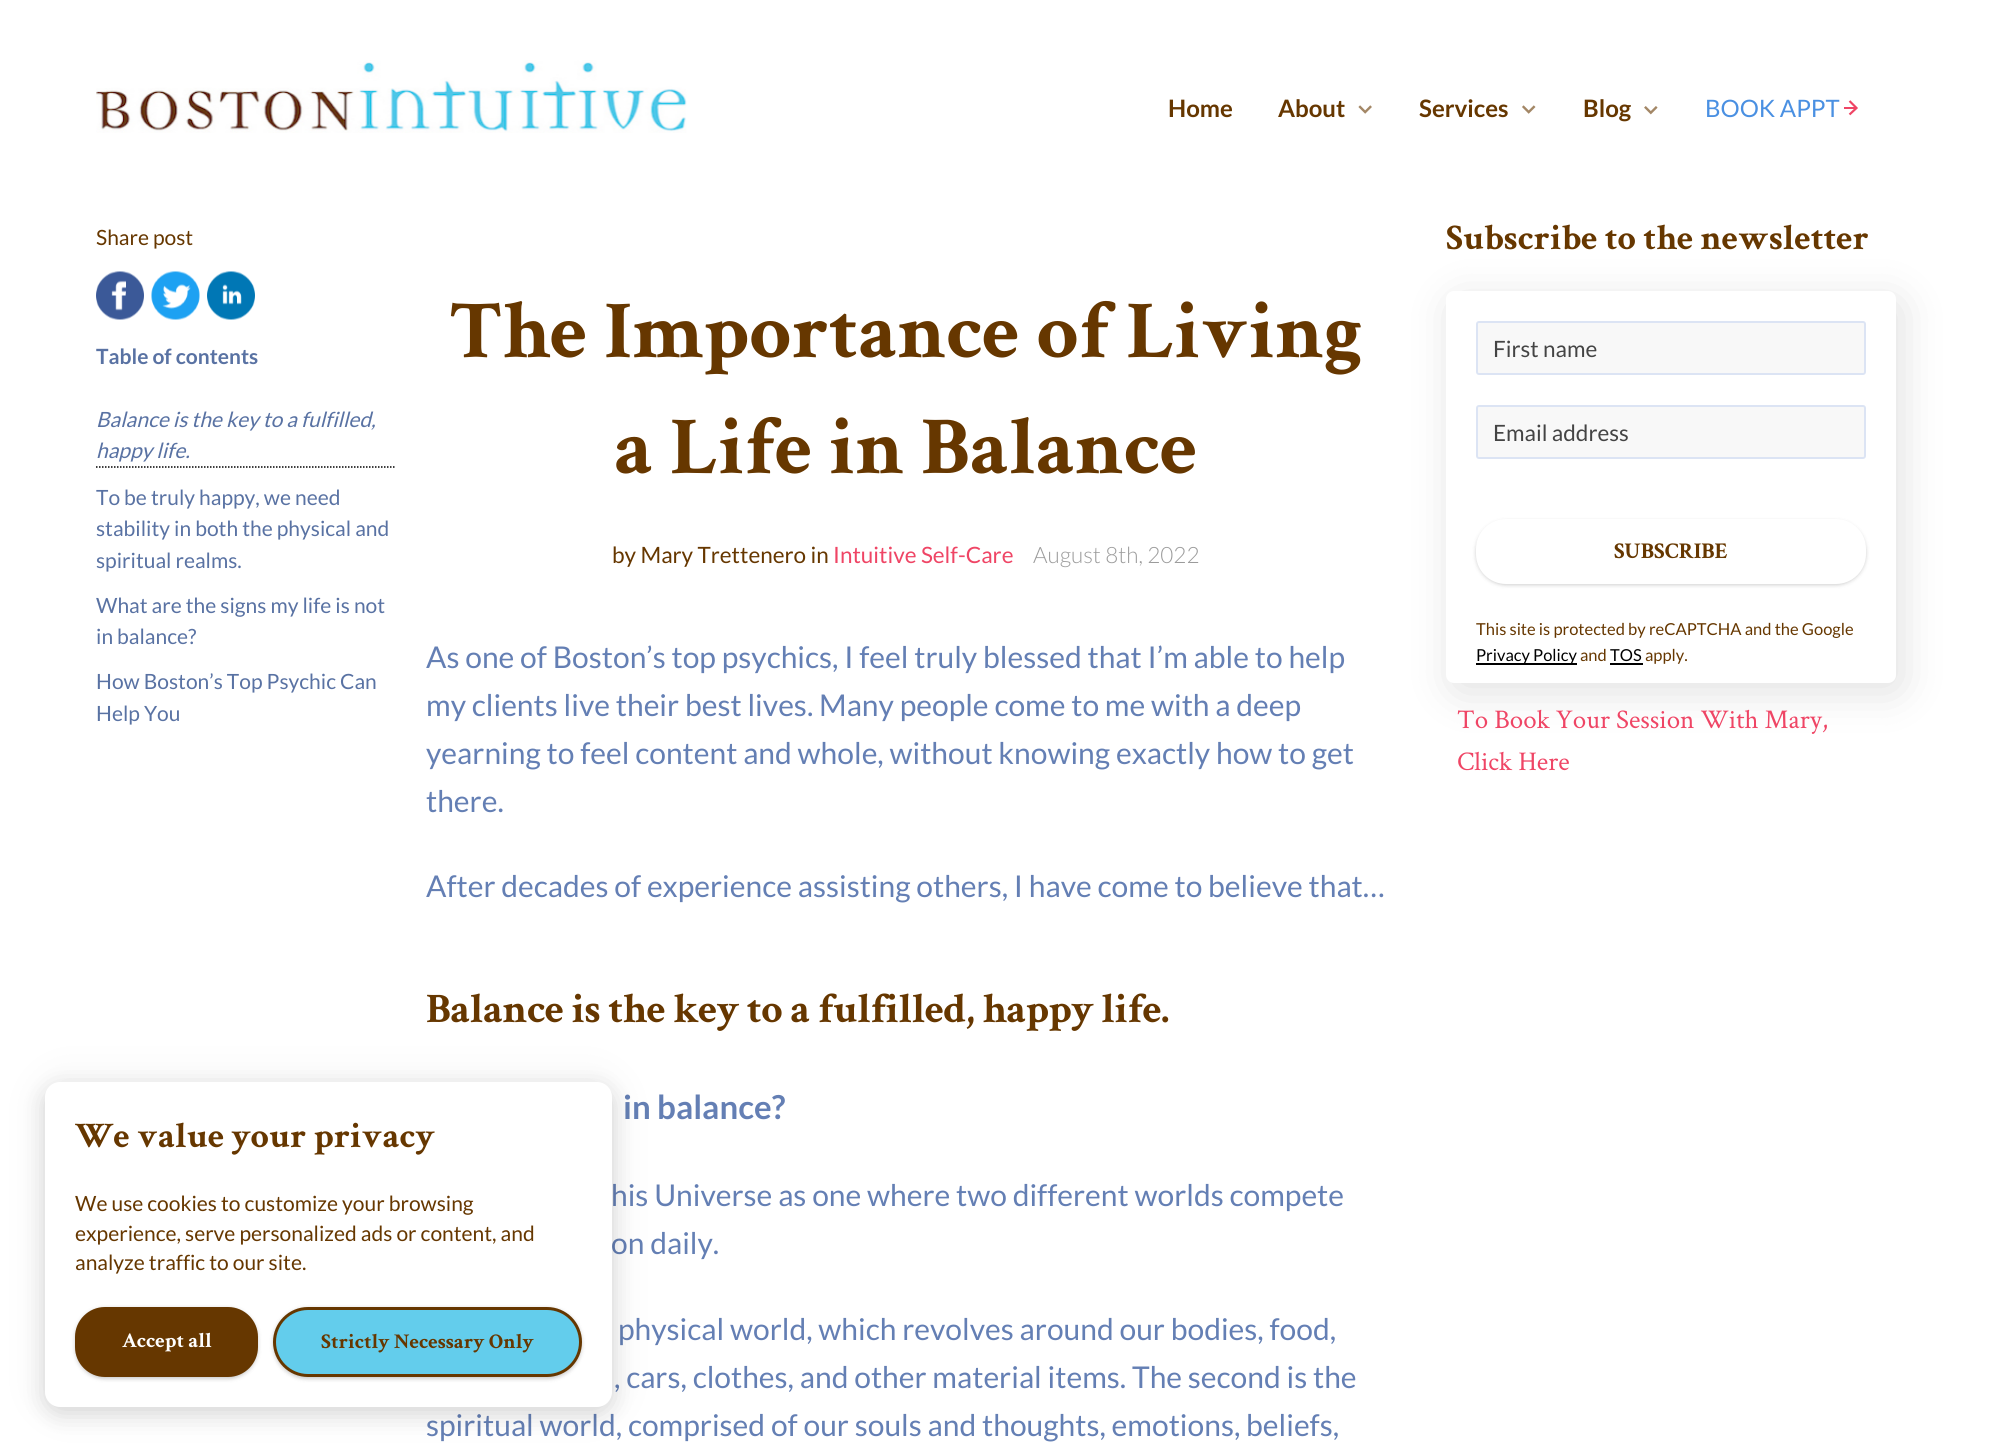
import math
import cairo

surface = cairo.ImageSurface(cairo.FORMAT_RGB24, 1991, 1451)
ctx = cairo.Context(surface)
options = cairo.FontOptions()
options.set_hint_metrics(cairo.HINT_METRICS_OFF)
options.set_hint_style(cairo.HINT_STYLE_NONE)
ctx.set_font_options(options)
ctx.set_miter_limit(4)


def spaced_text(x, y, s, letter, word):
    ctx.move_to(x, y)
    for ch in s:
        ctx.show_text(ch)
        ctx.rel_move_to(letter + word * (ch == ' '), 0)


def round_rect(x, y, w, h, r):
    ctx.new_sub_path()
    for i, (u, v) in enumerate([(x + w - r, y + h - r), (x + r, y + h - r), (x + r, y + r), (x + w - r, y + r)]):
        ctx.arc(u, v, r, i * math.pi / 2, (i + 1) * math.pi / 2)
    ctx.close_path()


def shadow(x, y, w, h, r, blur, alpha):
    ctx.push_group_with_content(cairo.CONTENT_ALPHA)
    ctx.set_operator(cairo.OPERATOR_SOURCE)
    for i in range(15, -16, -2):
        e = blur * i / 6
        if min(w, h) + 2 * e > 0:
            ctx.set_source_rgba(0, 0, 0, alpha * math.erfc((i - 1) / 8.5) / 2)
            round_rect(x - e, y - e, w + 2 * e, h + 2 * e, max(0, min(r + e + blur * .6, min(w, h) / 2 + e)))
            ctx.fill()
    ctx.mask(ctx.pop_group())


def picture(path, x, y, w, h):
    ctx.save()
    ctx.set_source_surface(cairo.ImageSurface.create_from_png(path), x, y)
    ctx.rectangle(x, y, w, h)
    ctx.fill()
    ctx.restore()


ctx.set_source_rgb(1, 1, 1)
ctx.paint()
picture("img1.png", 96, 60, 591, 73)
ctx.select_font_face("Lato", cairo.FONT_SLANT_NORMAL, cairo.FONT_WEIGHT_BOLD)
ctx.set_font_size(24)
ctx.set_source_rgb(0.4, 0.216, 0)
ctx.move_to(1168, 117)
ctx.show_text("Home")
ctx.move_to(1278, 117)
ctx.show_text("About")
picture("img2.png", 1358, 105, 14, 9)
ctx.move_to(1419, 117)
ctx.show_text("Services")
picture("img3.png", 1522, 105, 14, 9)
ctx.move_to(1583, 117)
ctx.show_text("Blog")
picture("img4.png", 1644, 106, 14, 9)
ctx.select_font_face("Lato")
ctx.set_source_rgb(0.29, 0.565, 0.886)
ctx.move_to(1705, 117)
ctx.show_text("BOOK APPT")
ctx.new_path()
ctx.move_to(1849.5, 101)
ctx.line_to(1856.5, 108)
ctx.line_to(1849.5, 114.5)
ctx.set_source_rgb(0.937, 0.271, 0.396)
ctx.set_line_width(2.2)
ctx.stroke()
ctx.rectangle(1844, 107, 12, 2)
ctx.fill()
ctx.set_font_size(21)
ctx.set_source_rgb(0.4, 0.216, 0)
ctx.move_to(96, 245)
ctx.show_text("Share post")
picture("img5.png", 96, 271, 48, 49)
picture("img6.png", 151, 271, 49, 49)
picture("img7.png", 207, 271, 48, 49)
ctx.select_font_face("Lato", cairo.FONT_SLANT_NORMAL, cairo.FONT_WEIGHT_BOLD)
ctx.set_source_rgb(0.349, 0.447, 0.639)
ctx.move_to(96, 364)
ctx.show_text("Table of contents")
ctx.new_path()
ctx.move_to(96, 467)
ctx.line_to(396, 467)
ctx.set_source_rgb(0, 0, 0)
ctx.set_line_width(1.5)
ctx.set_dash([1.5, 1.5])
ctx.stroke()
ctx.select_font_face("Lato", cairo.FONT_SLANT_ITALIC)
ctx.set_source_rgb(0.349, 0.447, 0.639)
ctx.move_to(96, 427)
ctx.show_text("Balance is the key to a fulfilled,")
ctx.move_to(96, 458)
ctx.show_text("happy life.")
ctx.select_font_face("Lato")
ctx.move_to(96, 505)
ctx.show_text("To be truly happy, we need")
ctx.move_to(96, 536)
ctx.show_text("stability in both the physical and")
ctx.move_to(96, 568)
ctx.show_text("spiritual realms.")
ctx.move_to(96, 613)
ctx.show_text("What are the signs my life is not")
ctx.move_to(96, 644)
ctx.show_text("in balance?")
ctx.move_to(96, 689)
ctx.show_text("How Boston’s Top Psychic Can")
ctx.move_to(96, 721)
ctx.show_text("Help You")
ctx.select_font_face("Crimson Text", cairo.FONT_SLANT_NORMAL, cairo.FONT_WEIGHT_BOLD)
ctx.set_font_size(82.5)
ctx.set_source_rgb(0.4, 0.216, 0)
ctx.move_to(449, 357)
ctx.show_text("The Importance of Living")
ctx.move_to(614, 473)
ctx.show_text("a Life in Balance")
ctx.select_font_face("Lato")
ctx.set_font_size(22.5)
ctx.move_to(612, 563)
ctx.show_text("by Mary Trettenero in")
ctx.set_source_rgb(0.937, 0.271, 0.396)
ctx.move_to(833, 563)
ctx.show_text("Intuitive Self-Care")
ctx.select_font_face("Lato Light")
ctx.set_source_rgb(0.608, 0.608, 0.608)
ctx.move_to(1033, 563)
ctx.show_text("August 8th, 2022")
ctx.select_font_face("Lato")
ctx.set_font_size(30)
ctx.set_source_rgb(0.392, 0.498, 0.706)
ctx.move_to(426, 668)
ctx.show_text("As one of Boston’s top psychics, I feel truly blessed that I’m able to help")
ctx.move_to(426, 716)
ctx.show_text("my clients live their best lives. Many people come to me with a deep")
ctx.move_to(426, 764)
ctx.show_text("yearning to feel content and whole, without knowing exactly how to get")
ctx.move_to(426, 812)
ctx.show_text("there.")
ctx.move_to(426, 897)
ctx.show_text("After decades of experience assisting others, I have come to believe that…")
ctx.select_font_face("Crimson Text", cairo.FONT_SLANT_NORMAL, cairo.FONT_WEIGHT_BOLD)
ctx.set_font_size(42)
ctx.set_source_rgb(0.4, 0.216, 0)
spaced_text(426, 1022, "Balance is the key to a fulfilled, happy life.", -0.45, 0)
ctx.select_font_face("Lato", cairo.FONT_SLANT_NORMAL, cairo.FONT_WEIGHT_BOLD)
ctx.set_font_size(33)
ctx.set_source_rgb(0.392, 0.498, 0.706)
ctx.move_to(623, 1119)
ctx.show_text("in balance?")
ctx.select_font_face("Lato")
ctx.set_font_size(30)
ctx.move_to(611, 1206)
ctx.show_text("his Universe as one where two different worlds compete")
ctx.move_to(611, 1254)
ctx.show_text("on daily.")
ctx.move_to(618, 1340)
ctx.show_text("physical world, which revolves around our bodies, food,")
ctx.move_to(614, 1388)
ctx.show_text(", cars, clothes, and other material items. The second is the")
ctx.move_to(426, 1436)
ctx.show_text("spiritual world, comprised of our souls and thoughts, emotions, beliefs,")
ctx.select_font_face("Crimson Text", cairo.FONT_SLANT_NORMAL, cairo.FONT_WEIGHT_BOLD)
ctx.set_font_size(36)
ctx.set_source_rgb(0.4, 0.216, 0)
ctx.move_to(1446, 249)
ctx.show_text("Subscribe to the newsletter")
ctx.set_source_rgb(0, 0, 0)
shadow(1452, 300, 450, 392, 8, 22.5, 0.12)
ctx.set_source_rgb(1, 1, 1)
round_rect(1446, 291, 450, 392, 8)
ctx.fill()
ctx.set_source_rgb(0.969, 0.969, 0.969)
round_rect(1477, 322, 388, 52, 2)
ctx.fill_preserve()
ctx.set_source_rgb(0.863, 0.894, 0.957)
ctx.set_line_width(2)
ctx.set_dash([])
ctx.stroke()
ctx.select_font_face("Lato")
ctx.set_font_size(22.5)
ctx.set_source_rgb(0.267, 0.267, 0.267)
ctx.move_to(1493, 357)
ctx.show_text("First name")
ctx.set_source_rgb(0.969, 0.969, 0.969)
round_rect(1477, 406, 388, 52, 2)
ctx.fill_preserve()
ctx.set_source_rgb(0.863, 0.894, 0.957)
ctx.stroke()
ctx.set_source_rgb(0.267, 0.267, 0.267)
ctx.move_to(1493, 441)
ctx.show_text("Email address")
ctx.set_source_rgb(0, 0, 0)
shadow(1476, 521, 390, 64, 30, 2, 0.2)
ctx.set_source_rgb(1, 1, 1)
round_rect(1476, 519, 390, 65, 30)
ctx.fill()
ctx.select_font_face("Crimson Text", cairo.FONT_SLANT_NORMAL, cairo.FONT_WEIGHT_BOLD)
ctx.set_source_rgb(0.4, 0.216, 0)
ctx.move_to(1614, 558)
ctx.show_text("SUBSCRIBE")
ctx.select_font_face("Lato")
ctx.set_font_size(16.5)
ctx.move_to(1476, 635)
ctx.show_text("This site is protected by reCAPTCHA and the Google")
ctx.set_source_rgb(0, 0, 0)
ctx.rectangle(1476, 663, 101, 2)
ctx.fill()
ctx.move_to(1476, 661)
ctx.show_text("Privacy Policy")
ctx.set_source_rgb(0.4, 0.216, 0)
ctx.move_to(1580, 661)
ctx.show_text("and")
ctx.set_source_rgb(0, 0, 0)
ctx.move_to(1610, 661)
ctx.show_text("TOS")
ctx.rectangle(1610, 663, 33, 2)
ctx.fill()
ctx.set_source_rgb(0.4, 0.216, 0)
ctx.move_to(1645, 661)
ctx.show_text("apply.")
ctx.select_font_face("Crimson Text")
ctx.set_font_size(27)
ctx.set_source_rgb(0.937, 0.271, 0.396)
ctx.move_to(1457, 728)
ctx.show_text("To Book Your Session With Mary,")
ctx.move_to(1457, 770)
ctx.show_text("Click Here")
ctx.set_source_rgb(0, 0, 0)
shadow(45, 1082, 567, 325, 15, 24, 0.05)
shadow(45, 1088, 567, 325, 15, 12, 0.15)
ctx.set_source_rgb(1, 1, 1)
round_rect(45, 1082, 567, 325, 15)
ctx.fill()
ctx.select_font_face("Crimson Text", cairo.FONT_SLANT_NORMAL, cairo.FONT_WEIGHT_BOLD)
ctx.set_font_size(36)
ctx.set_source_rgb(0.4, 0.216, 0)
ctx.move_to(75, 1147)
ctx.show_text("We value your privacy")
ctx.select_font_face("Lato")
ctx.set_font_size(21)
ctx.move_to(75, 1211)
ctx.show_text("We use cookies to customize your browsing")
ctx.move_to(75, 1241)
ctx.show_text("experience, serve personalized ads or content, and")
ctx.move_to(75, 1270)
ctx.show_text("analyze traffic to our site.")
ctx.set_source_rgb(0, 0, 0)
shadow(75, 1308, 183, 71, 30, 2, 0.2)
ctx.set_source_rgb(0.4, 0.216, 0)
round_rect(76, 1308, 181, 68, 29)
ctx.fill_preserve()
ctx.stroke()
ctx.select_font_face("Crimson Text", cairo.FONT_SLANT_NORMAL, cairo.FONT_WEIGHT_BOLD)
ctx.set_source_rgb(1, 1, 1)
ctx.move_to(122, 1347)
ctx.show_text("Accept all")
ctx.set_source_rgb(0, 0, 0)
shadow(273, 1308, 309, 71, 35.5, 2, 0.2)
ctx.set_source_rgb(0.388, 0.804, 0.922)
round_rect(274.5, 1308.5, 306, 67, 33.5)
ctx.fill_preserve()
ctx.set_source_rgb(0.4, 0.216, 0)
ctx.set_line_width(3)
ctx.stroke()
ctx.move_to(321, 1348)
ctx.show_text("Strictly Necessary Only")
surface.write_to_png("page.png")
